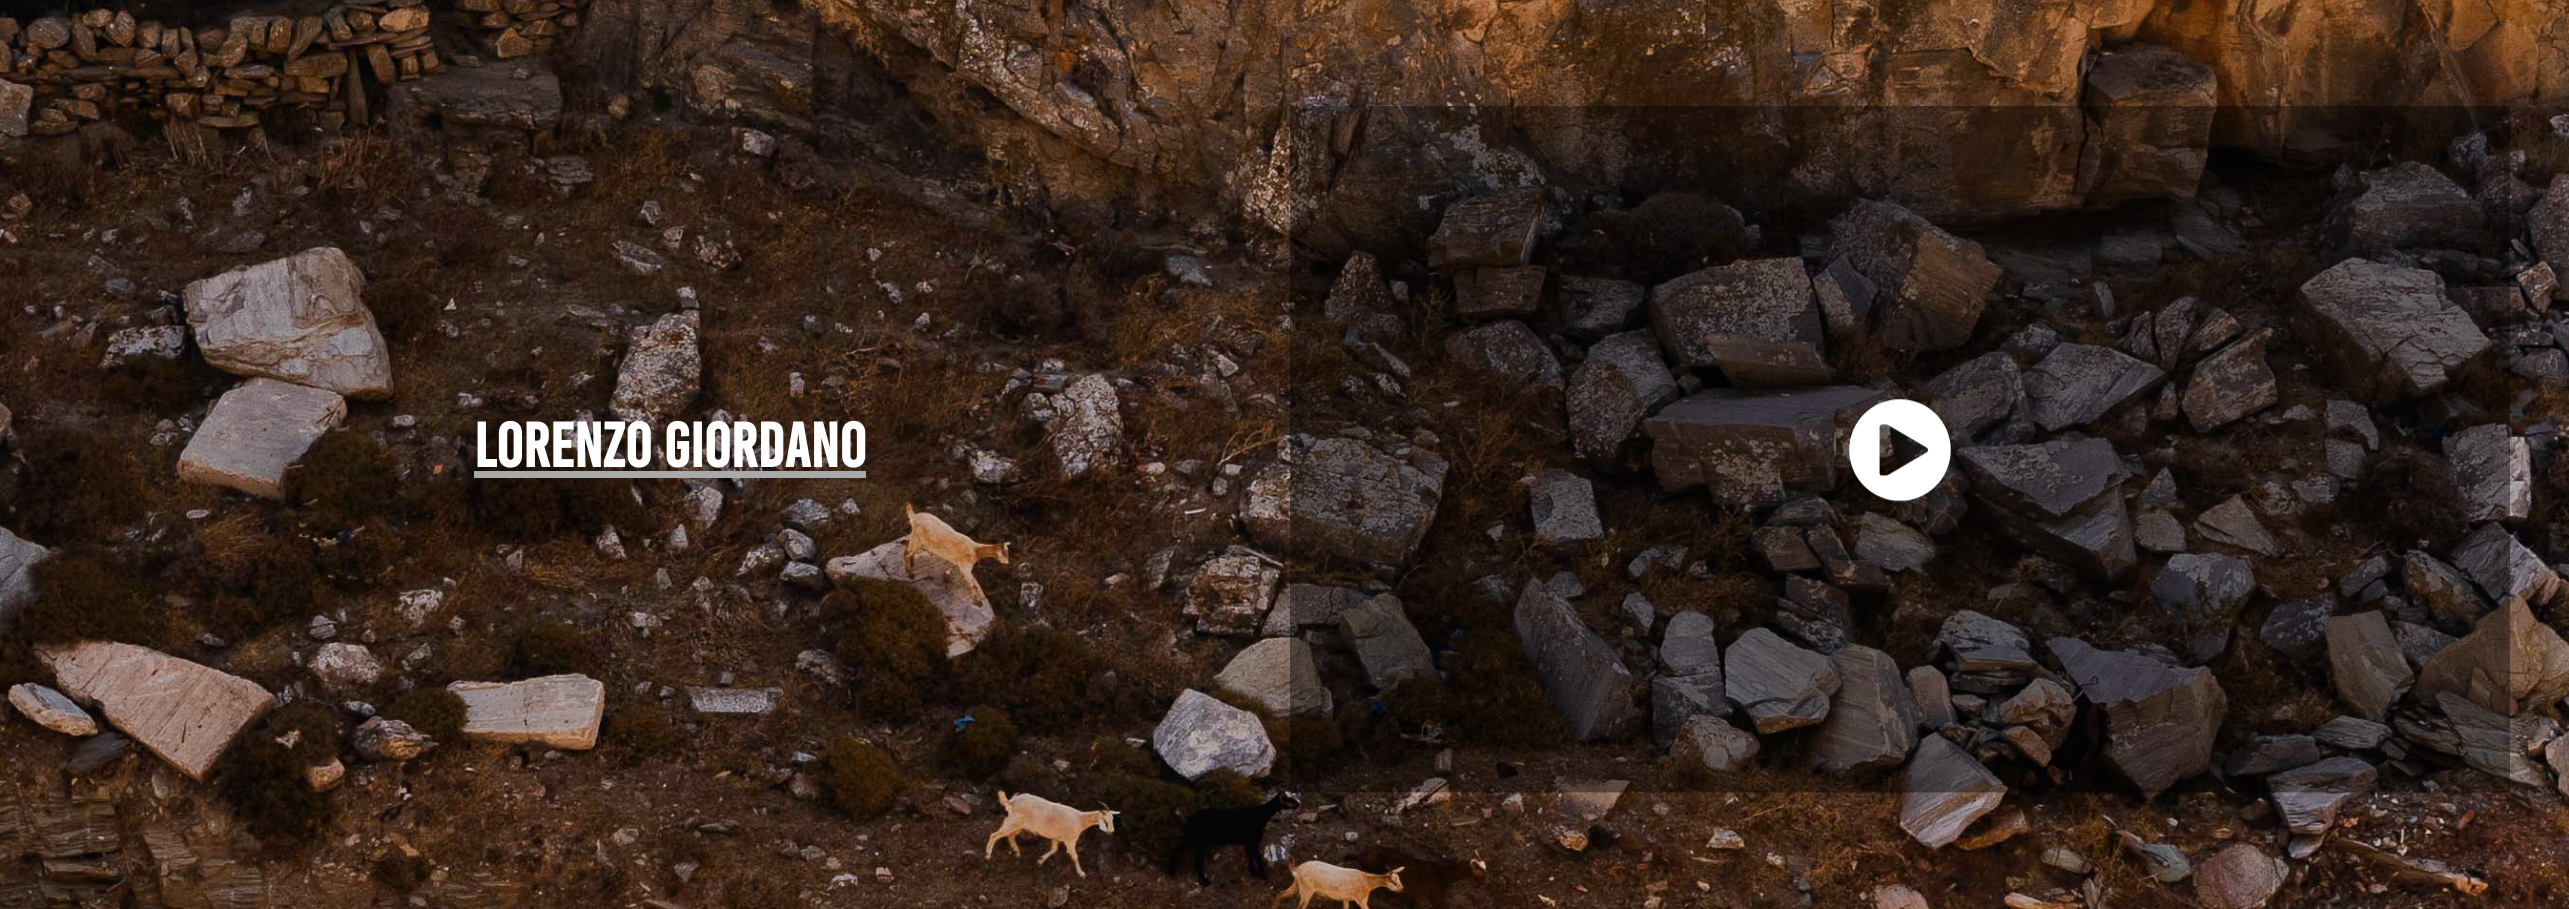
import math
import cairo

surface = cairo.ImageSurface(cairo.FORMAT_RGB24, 2569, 909)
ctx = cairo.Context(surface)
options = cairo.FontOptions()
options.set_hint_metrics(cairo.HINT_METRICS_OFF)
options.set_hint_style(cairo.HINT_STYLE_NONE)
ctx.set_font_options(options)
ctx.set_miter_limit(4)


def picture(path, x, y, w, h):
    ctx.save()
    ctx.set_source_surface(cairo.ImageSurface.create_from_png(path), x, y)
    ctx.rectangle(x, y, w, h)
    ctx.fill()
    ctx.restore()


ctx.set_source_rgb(1, 1, 1)
ctx.paint()
picture("img1.png", 0, 0, 2569, 909)
ctx.select_font_face("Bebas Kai", cairo.FONT_SLANT_NORMAL, cairo.FONT_WEIGHT_BOLD)
ctx.set_font_size(62.5)
ctx.set_source_rgb(1, 1, 1)
ctx.move_to(474, 467)
ctx.show_text("LORENZO GIORDANO")
ctx.set_source_rgb(0.663, 0.663, 0.663)
ctx.rectangle(474, 471, 392, 7)
ctx.fill()
picture("img2.png", 1290, 106, 1220, 687)
surface.write_to_png("page.png")
